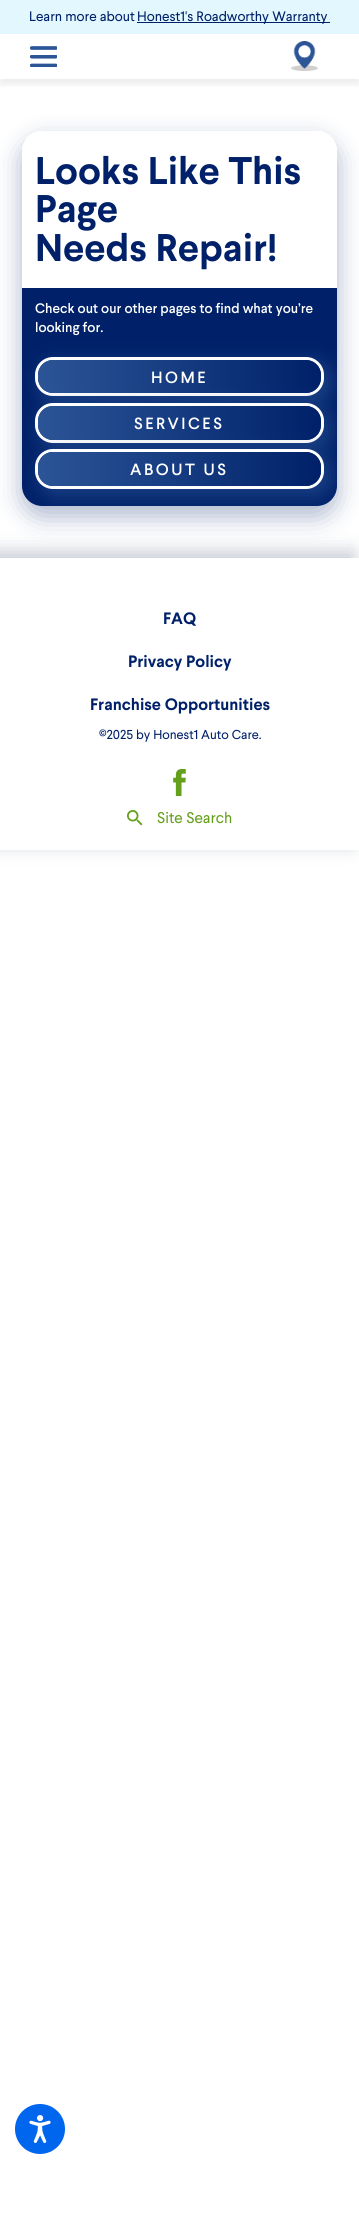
import math
import cairo

surface = cairo.ImageSurface(cairo.FORMAT_RGB24, 359, 2219)
ctx = cairo.Context(surface)
options = cairo.FontOptions()
options.set_hint_metrics(cairo.HINT_METRICS_OFF)
options.set_hint_style(cairo.HINT_STYLE_NONE)
ctx.set_font_options(options)
ctx.set_miter_limit(4)


def spaced_text(x, y, s, letter, word):
    ctx.move_to(x, y)
    for ch in s:
        ctx.show_text(ch)
        ctx.rel_move_to(letter + word * (ch == ' '), 0)


def round_rect(x, y, w, h, r):
    ctx.new_sub_path()
    for i, (u, v) in enumerate([(x + w - r, y + h - r), (x + r, y + h - r), (x + r, y + r), (x + w - r, y + r)]):
        ctx.arc(u, v, r, i * math.pi / 2, (i + 1) * math.pi / 2)
    ctx.close_path()


def shadow(x, y, w, h, r, blur, alpha):
    ctx.push_group_with_content(cairo.CONTENT_ALPHA)
    ctx.set_operator(cairo.OPERATOR_SOURCE)
    for i in range(15, -16, -2):
        e = blur * i / 6
        if min(w, h) + 2 * e > 0:
            ctx.set_source_rgba(0, 0, 0, alpha * math.erfc((i - 1) / 8.5) / 2)
            round_rect(x - e, y - e, w + 2 * e, h + 2 * e, max(0, min(r + e + blur * .6, min(w, h) / 2 + e)))
            ctx.fill()
    ctx.mask(ctx.pop_group())


def picture(path, x, y, w, h):
    ctx.save()
    ctx.set_source_surface(cairo.ImageSurface.create_from_png(path), x, y)
    ctx.rectangle(x, y, w, h)
    ctx.fill()
    ctx.restore()


ctx.set_source_rgb(1, 1, 1)
ctx.paint()
ctx.set_source_rgb(0.89, 0.969, 0.996)
ctx.rectangle(0, 0, 359, 34)
ctx.fill()
ctx.select_font_face("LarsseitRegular")
ctx.set_font_size(13.75)
ctx.set_source_rgb(0, 0.129, 0.412)
ctx.move_to(29, 21)
ctx.show_text("Learn more about")
ctx.rectangle(137, 22, 190, 1)
ctx.fill()
ctx.move_to(137, 21)
ctx.show_text("Honest1's Roadworthy Warranty")
ctx.rectangle(327, 22, 3, 1)
ctx.fill()
ctx.save()
ctx.rectangle(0, 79, 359, 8)
ctx.clip()
ctx.set_source_rgb(0, 0, 0)
shadow(0, 39, 359, 45, 0, 4, 0.08)
ctx.restore()
picture("img1.png", 30, 46, 27, 21)
picture("img2.png", 291, 41, 27, 30)
picture("img3.png", 15, 2104, 50, 50)
ctx.save()
ctx.set_fill_rule(cairo.FILL_RULE_EVEN_ODD)
ctx.new_path()
ctx.move_to(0, 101)
ctx.line_to(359, 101)
ctx.line_to(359, 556)
ctx.line_to(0, 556)
ctx.close_path()
ctx.move_to(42, 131)
ctx.line_to(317, 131)
ctx.curve_to(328, 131, 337, 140, 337, 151)
ctx.line_to(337, 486)
ctx.curve_to(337, 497, 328, 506, 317, 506)
ctx.line_to(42, 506)
ctx.curve_to(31, 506, 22, 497, 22, 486)
ctx.line_to(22, 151)
ctx.curve_to(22, 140, 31, 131, 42, 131)
ctx.close_path()
ctx.clip()
ctx.set_source_rgb(0, 0.129, 0.412)
shadow(22, 141, 315, 375, 20, 13, 0.33)
ctx.restore()
ctx.select_font_face("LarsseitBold", cairo.FONT_SLANT_NORMAL, cairo.FONT_WEIGHT_BOLD)
ctx.set_font_size(38.5)
ctx.move_to(35, 184)
ctx.show_text("Looks Like This")
ctx.move_to(35, 222)
ctx.show_text("Page")
ctx.move_to(35, 261)
ctx.show_text("Needs Repair!")
ctx.new_path()
ctx.move_to(22, 288)
ctx.line_to(337, 288)
ctx.line_to(337, 486)
ctx.curve_to(337, 497, 328, 506, 317, 506)
ctx.line_to(42, 506)
ctx.curve_to(31, 506, 22, 497, 22, 486)
ctx.close_path()
ctx.fill()
ctx.select_font_face("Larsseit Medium")
ctx.set_font_size(13.75)
ctx.set_source_rgb(1, 1, 1)
ctx.move_to(35, 313)
ctx.show_text("Check out our other pages to find what you’re")
ctx.move_to(35, 332)
ctx.show_text("looking for.")
ctx.save()
round_rect(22, 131, 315, 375, 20)
ctx.clip()
ctx.set_source_rgb(0.169, 0.333, 0.592)
shadow(41, 363, 289, 39, 18, 10, 0.63)
ctx.restore()
round_rect(36.5, 358.5, 286, 36, 16.5)
ctx.set_line_width(3)
ctx.stroke()
gradient = cairo.LinearGradient(38, 377, 321, 377)
gradient.add_color_stop_rgba(0, 0.169, 0.333, 0.592, 1)
gradient.add_color_stop_rgba(1, 0, 0.129, 0.412, 1)
ctx.set_source(gradient)
round_rect(38, 360, 283, 33, 15)
ctx.fill()
ctx.set_font_size(16.25)
ctx.set_source_rgb(1, 1, 1)
spaced_text(151, 383, "HOME", 2.5, 0)
ctx.save()
round_rect(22, 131, 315, 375, 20)
ctx.clip()
ctx.set_source_rgb(0.169, 0.333, 0.592)
shadow(41, 409, 289, 40, 18, 10, 0.63)
ctx.restore()
round_rect(36.5, 404.5, 286, 37, 16.5)
ctx.stroke()
gradient = cairo.LinearGradient(38, 423, 321, 423)
gradient.add_color_stop_rgba(0, 0.169, 0.333, 0.592, 1)
gradient.add_color_stop_rgba(1, 0, 0.129, 0.412, 1)
ctx.set_source(gradient)
round_rect(38, 406, 283, 34, 15)
ctx.fill()
ctx.set_source_rgb(1, 1, 1)
spaced_text(134, 429, "SERVICES", 2.5, 0)
ctx.save()
round_rect(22, 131, 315, 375, 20)
ctx.clip()
ctx.set_source_rgb(0.169, 0.333, 0.592)
shadow(41, 455, 289, 40, 18, 10, 0.63)
ctx.restore()
round_rect(36.5, 450.5, 286, 37, 16.5)
ctx.stroke()
gradient = cairo.LinearGradient(38, 469, 321, 469)
gradient.add_color_stop_rgba(0, 0.169, 0.333, 0.592, 1)
gradient.add_color_stop_rgba(1, 0, 0.129, 0.412, 1)
ctx.set_source(gradient)
round_rect(38, 452, 283, 34, 15)
ctx.fill()
ctx.set_source_rgb(1, 1, 1)
spaced_text(130, 475, "ABOUT US", 2.5, 0)
ctx.save()
ctx.set_fill_rule(cairo.FILL_RULE_EVEN_ODD)
ctx.new_path()
ctx.move_to(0, 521)
ctx.line_to(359, 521)
ctx.line_to(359, 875)
ctx.line_to(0, 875)
ctx.close_path()
ctx.move_to(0, 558)
ctx.line_to(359, 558)
ctx.line_to(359, 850)
ctx.line_to(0, 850)
ctx.close_path()
ctx.clip()
ctx.set_source_rgb(0.027, 0.106, 0.282)
shadow(-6, 552, 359, 292, 0, 10, 0.24)
ctx.restore()
ctx.select_font_face("LarsseitBold", cairo.FONT_SLANT_NORMAL, cairo.FONT_WEIGHT_BOLD)
ctx.set_font_size(16.5)
ctx.set_source_rgb(0, 0.129, 0.412)
ctx.move_to(163, 624)
ctx.show_text("FAQ")
ctx.move_to(128, 667)
ctx.show_text("Privacy Policy")
ctx.move_to(90, 710)
ctx.show_text("Franchise Opportunities")
ctx.select_font_face("LarsseitRegular")
ctx.set_font_size(12.9)
ctx.move_to(99, 739)
ctx.show_text("©2025 by Honest1 Auto Care.")
picture("img4.png", 173, 769, 13, 27)
picture("img5.png", 127, 810, 16, 16)
ctx.set_font_size(15.5)
ctx.set_source_rgb(0.396, 0.627, 0.114)
ctx.move_to(157, 823)
ctx.show_text("Site Search")
surface.write_to_png("page.png")
